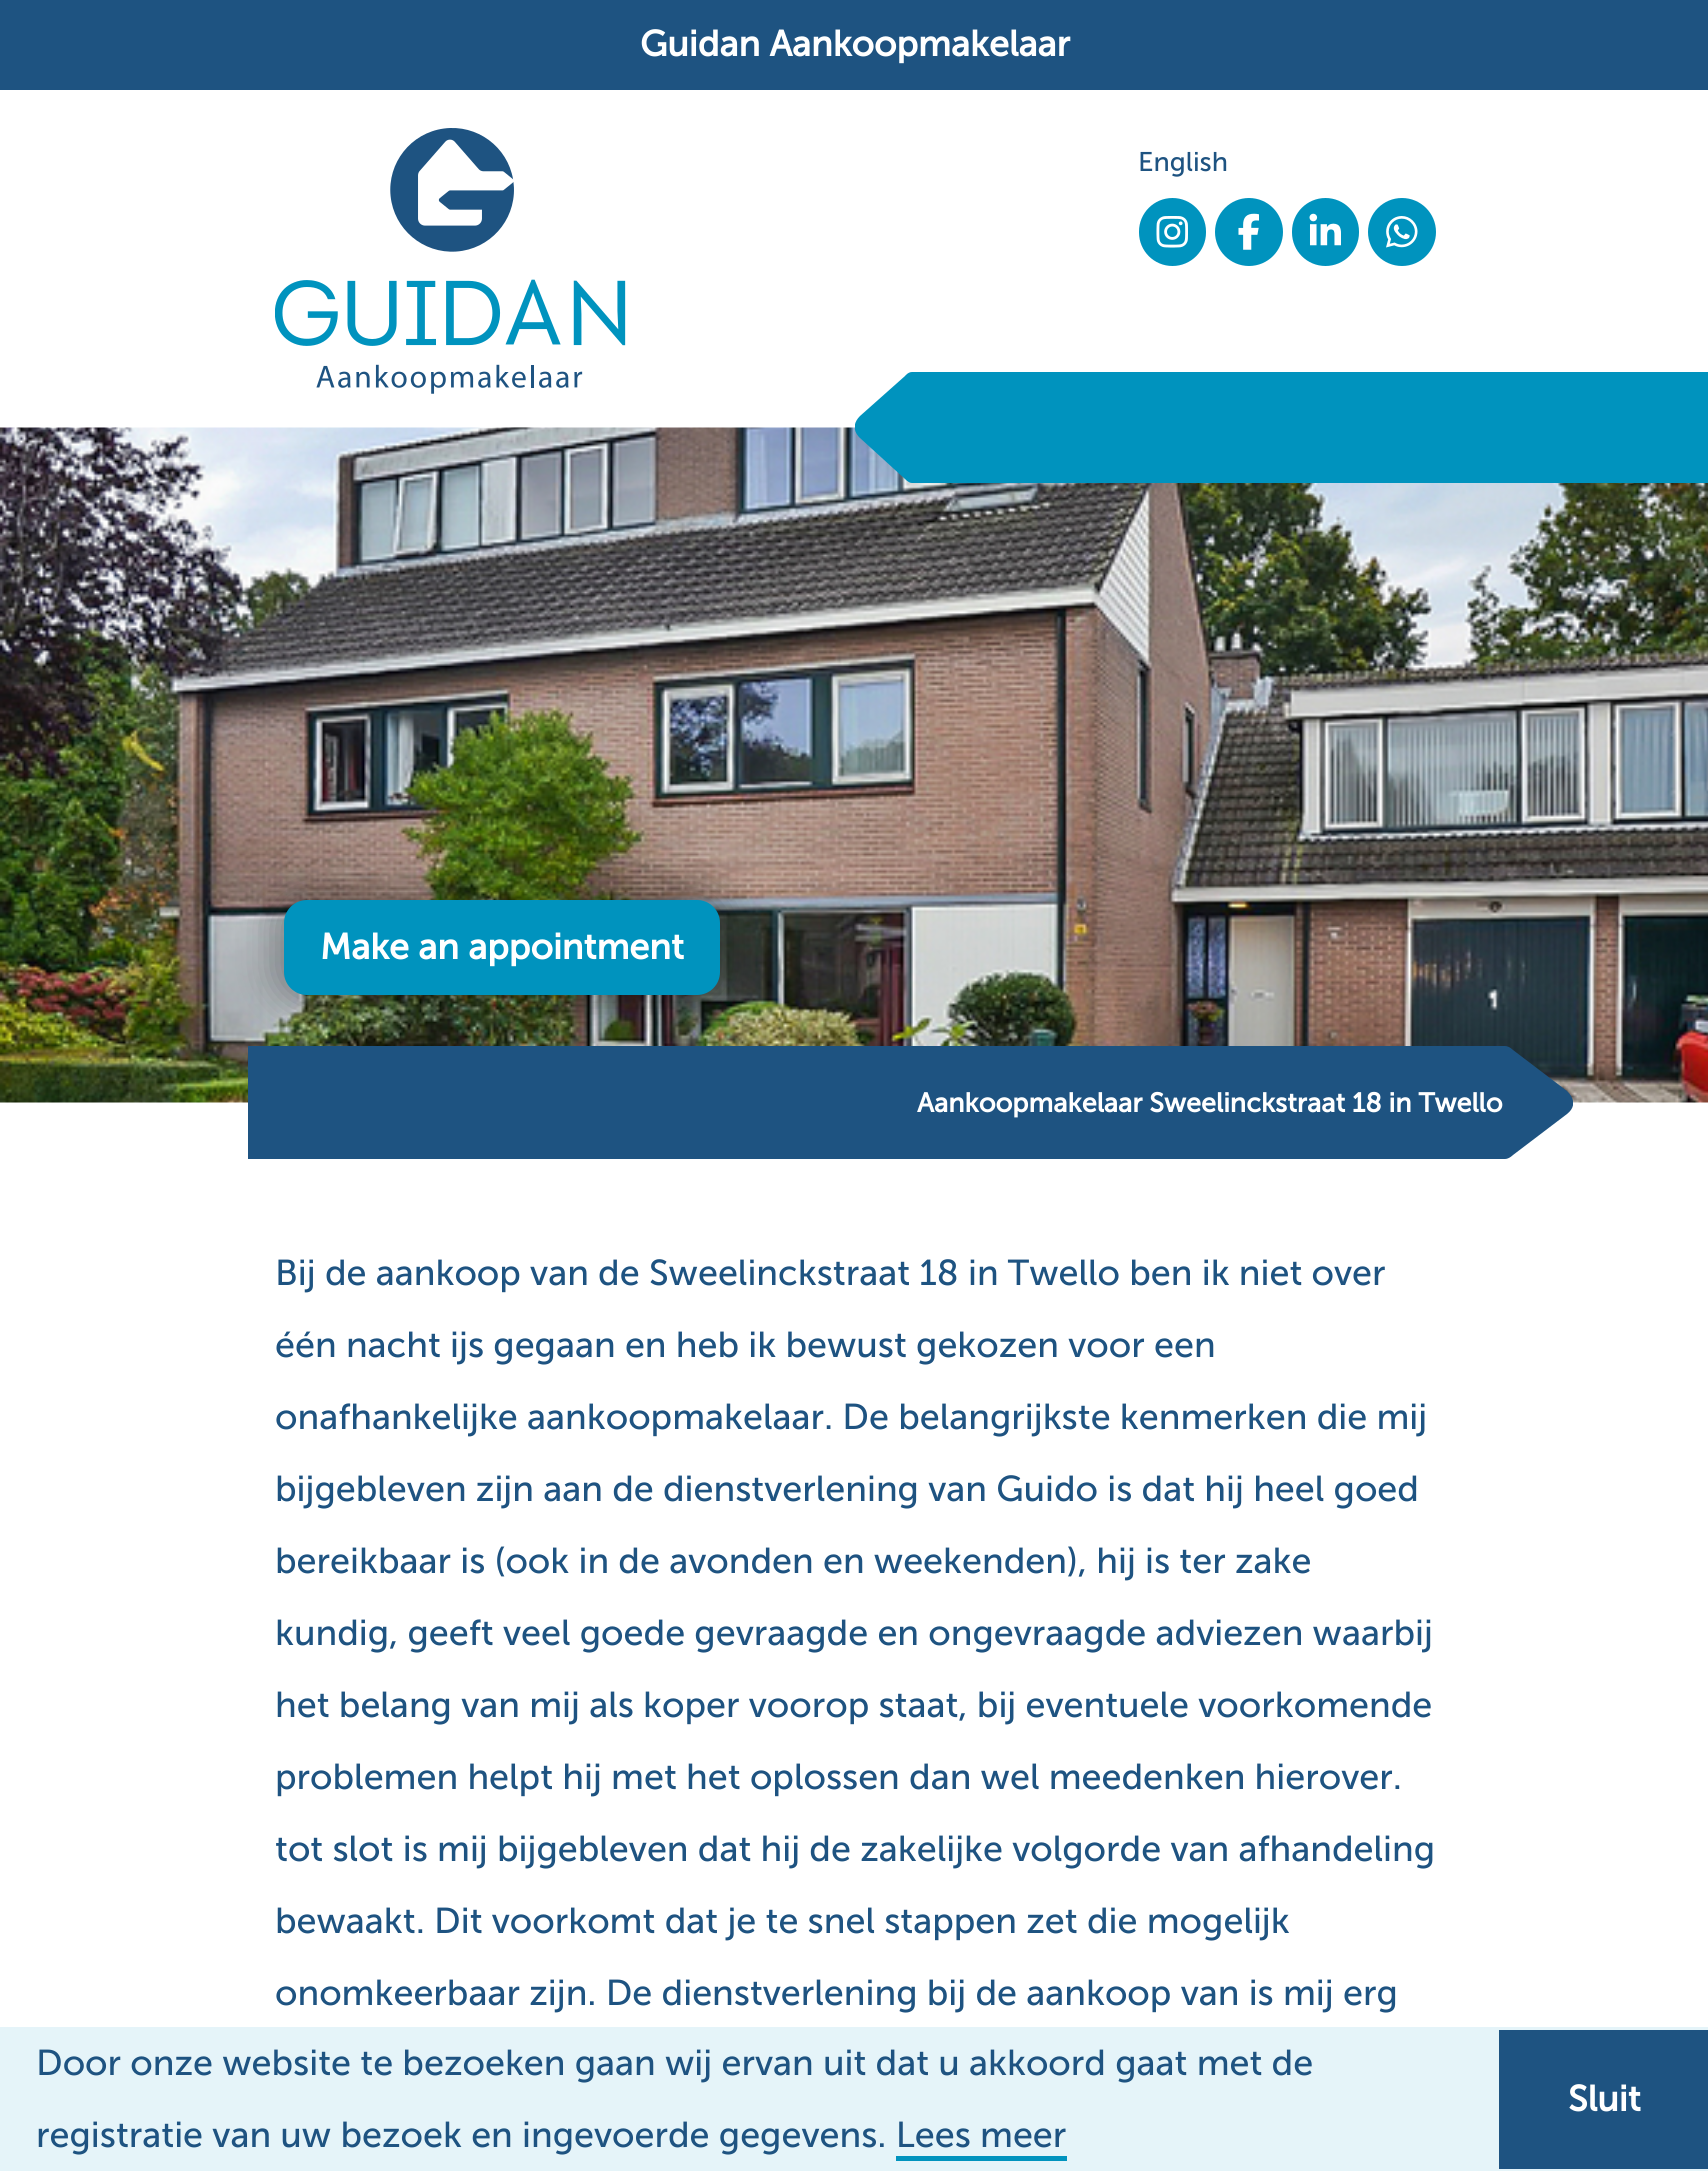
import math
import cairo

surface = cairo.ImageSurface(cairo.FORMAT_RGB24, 1708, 2171)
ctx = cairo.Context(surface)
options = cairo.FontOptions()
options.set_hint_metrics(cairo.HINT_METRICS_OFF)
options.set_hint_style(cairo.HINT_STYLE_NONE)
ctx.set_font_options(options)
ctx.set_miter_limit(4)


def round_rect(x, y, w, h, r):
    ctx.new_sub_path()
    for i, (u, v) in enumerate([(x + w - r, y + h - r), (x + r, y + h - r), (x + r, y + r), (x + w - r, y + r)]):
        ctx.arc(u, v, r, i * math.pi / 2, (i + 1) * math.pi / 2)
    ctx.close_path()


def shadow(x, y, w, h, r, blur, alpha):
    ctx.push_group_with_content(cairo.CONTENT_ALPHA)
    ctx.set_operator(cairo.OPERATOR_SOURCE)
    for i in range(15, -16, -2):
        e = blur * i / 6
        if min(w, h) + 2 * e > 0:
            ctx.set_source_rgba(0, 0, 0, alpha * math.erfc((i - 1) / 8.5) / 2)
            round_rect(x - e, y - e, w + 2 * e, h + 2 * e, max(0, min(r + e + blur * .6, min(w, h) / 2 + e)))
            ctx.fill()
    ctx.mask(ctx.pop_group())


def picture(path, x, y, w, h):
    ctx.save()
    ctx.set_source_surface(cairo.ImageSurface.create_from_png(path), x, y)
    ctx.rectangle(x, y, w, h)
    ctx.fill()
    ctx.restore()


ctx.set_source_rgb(1, 1, 1)
ctx.paint()
ctx.set_source_rgb(0.118, 0.325, 0.506)
ctx.rectangle(0, 0, 1708, 90)
ctx.fill()
ctx.select_font_face("Museo Sans", cairo.FONT_SLANT_NORMAL, cairo.FONT_WEIGHT_BOLD)
ctx.set_font_size(36)
ctx.set_source_rgb(1, 1, 1)
ctx.move_to(640, 56)
ctx.show_text("Guidan Aankoopmakelaar")
picture("img1.png", 275, 128, 351, 266)
ctx.select_font_face("Museo Sans")
ctx.set_font_size(27)
ctx.set_source_rgb(0.118, 0.325, 0.506)
ctx.move_to(1138, 171)
ctx.show_text("English")
ctx.set_source_rgb(0, 0.576, 0.745)
round_rect(1139, 198, 67, 68, 33.5)
ctx.fill()
picture("img2.png", 1156, 216, 32, 32)
ctx.arc(1249, 232, 34, 0, 2 * math.pi)
ctx.fill()
picture("img3.png", 1238, 213, 21, 37)
round_rect(1292, 198, 67, 68, 33.5)
ctx.fill()
picture("img4.png", 1309, 213, 32, 33)
ctx.arc(1402, 232, 34, 0, 2 * math.pi)
ctx.fill()
picture("img5.png", 1386, 216, 32, 32)
picture("img6.png", 0, 427, 1708, 676)
ctx.save()
ctx.rectangle(855, 372, 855, 111)
ctx.clip()
ctx.new_path()
ctx.move_to(912, 372)
ctx.curve_to(908, 372, 905, 376, 905, 376)
ctx.line_to(860, 416)
ctx.curve_to(848, 428, 860, 438, 860, 438)
ctx.line_to(905, 479)
ctx.curve_to(908, 482, 910, 483, 912, 483)
ctx.line_to(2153, 483)
ctx.line_to(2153, 372)
ctx.close_path()
ctx.fill()
ctx.restore()
ctx.set_source_rgb(0, 0, 0)
shadow(272, 889, 459, 117, 34, 17, 0.3)
ctx.set_source_rgb(0, 0.576, 0.745)
round_rect(284, 900, 436, 95, 23)
ctx.fill()
ctx.select_font_face("Museo Sans", cairo.FONT_SLANT_NORMAL, cairo.FONT_WEIGHT_BOLD)
ctx.set_font_size(36)
ctx.set_source_rgb(1, 1, 1)
ctx.move_to(320, 959)
ctx.show_text("Make an appointment")
ctx.save()
ctx.rectangle(248, 1046, 1325, 113)
ctx.clip()
ctx.set_source_rgb(0.118, 0.325, 0.506)
ctx.new_path()
ctx.move_to(1505, 1159)
ctx.curve_to(1509, 1159, 1513, 1155, 1513, 1155)
ctx.line_to(1567, 1114)
ctx.curve_to(1581, 1103, 1567, 1091, 1567, 1091)
ctx.line_to(1513, 1050)
ctx.curve_to(1510, 1047, 1507, 1046, 1505, 1046)
ctx.line_to(-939, 1046)
ctx.line_to(-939, 1159)
ctx.close_path()
ctx.fill()
ctx.restore()
ctx.set_font_size(27)
ctx.move_to(917, 1112)
ctx.show_text("Aankoopmakelaar Sweelinckstraat 18 in Twello")
ctx.select_font_face("Museo Sans")
ctx.set_font_size(36)
ctx.set_source_rgb(0.118, 0.325, 0.506)
ctx.move_to(275, 1285)
ctx.show_text("Bij de aankoop van de Sweelinckstraat 18 in Twello ben ik niet over")
ctx.move_to(275, 1357)
ctx.show_text("één nacht ijs gegaan en heb ik bewust gekozen voor een")
ctx.move_to(275, 1429)
ctx.show_text("onafhankelijke aankoopmakelaar. De belangrijkste kenmerken die mij")
ctx.move_to(275, 1501)
ctx.show_text("bijgebleven zijn aan de dienstverlening van Guido is dat hij heel goed")
ctx.move_to(275, 1573)
ctx.show_text("bereikbaar is (ook in de avonden en weekenden), hij is ter zake")
ctx.move_to(275, 1645)
ctx.show_text("kundig, geeft veel goede gevraagde en ongevraagde adviezen waarbij")
ctx.move_to(275, 1717)
ctx.show_text("het belang van mij als koper voorop staat, bij eventuele voorkomende")
ctx.move_to(275, 1789)
ctx.show_text("problemen helpt hij met het oplossen dan wel meedenken hierover.")
ctx.move_to(275, 1861)
ctx.show_text("tot slot is mij bijgebleven dat hij de zakelijke volgorde van afhandeling")
ctx.move_to(275, 1933)
ctx.show_text("bewaakt. Dit voorkomt dat je te snel stappen zet die mogelijk")
ctx.move_to(275, 2005)
ctx.show_text("onomkeerbaar zijn. De dienstverlening bij de aankoop van is mij erg")
ctx.set_source_rgb(0.898, 0.957, 0.973)
ctx.rectangle(0, 2027, 1708, 144)
ctx.fill()
ctx.set_source_rgb(0.118, 0.325, 0.506)
ctx.move_to(36, 2075)
ctx.show_text("Door onze website te bezoeken gaan wij ervan uit dat u akkoord gaat met de")
ctx.move_to(36, 2147)
ctx.show_text("registratie van uw bezoek en ingevoerde gegevens. Lees meer")
ctx.set_source_rgb(0, 0.576, 0.745)
ctx.rectangle(896, 2156, 171, 5)
ctx.fill()
ctx.set_source_rgb(0.118, 0.325, 0.506)
ctx.rectangle(1499, 2030, 209, 139)
ctx.fill()
ctx.select_font_face("Museo Sans", cairo.FONT_SLANT_NORMAL, cairo.FONT_WEIGHT_BOLD)
ctx.set_source_rgb(1, 1, 1)
ctx.move_to(1568, 2111)
ctx.show_text("Sluit")
surface.write_to_png("page.png")
